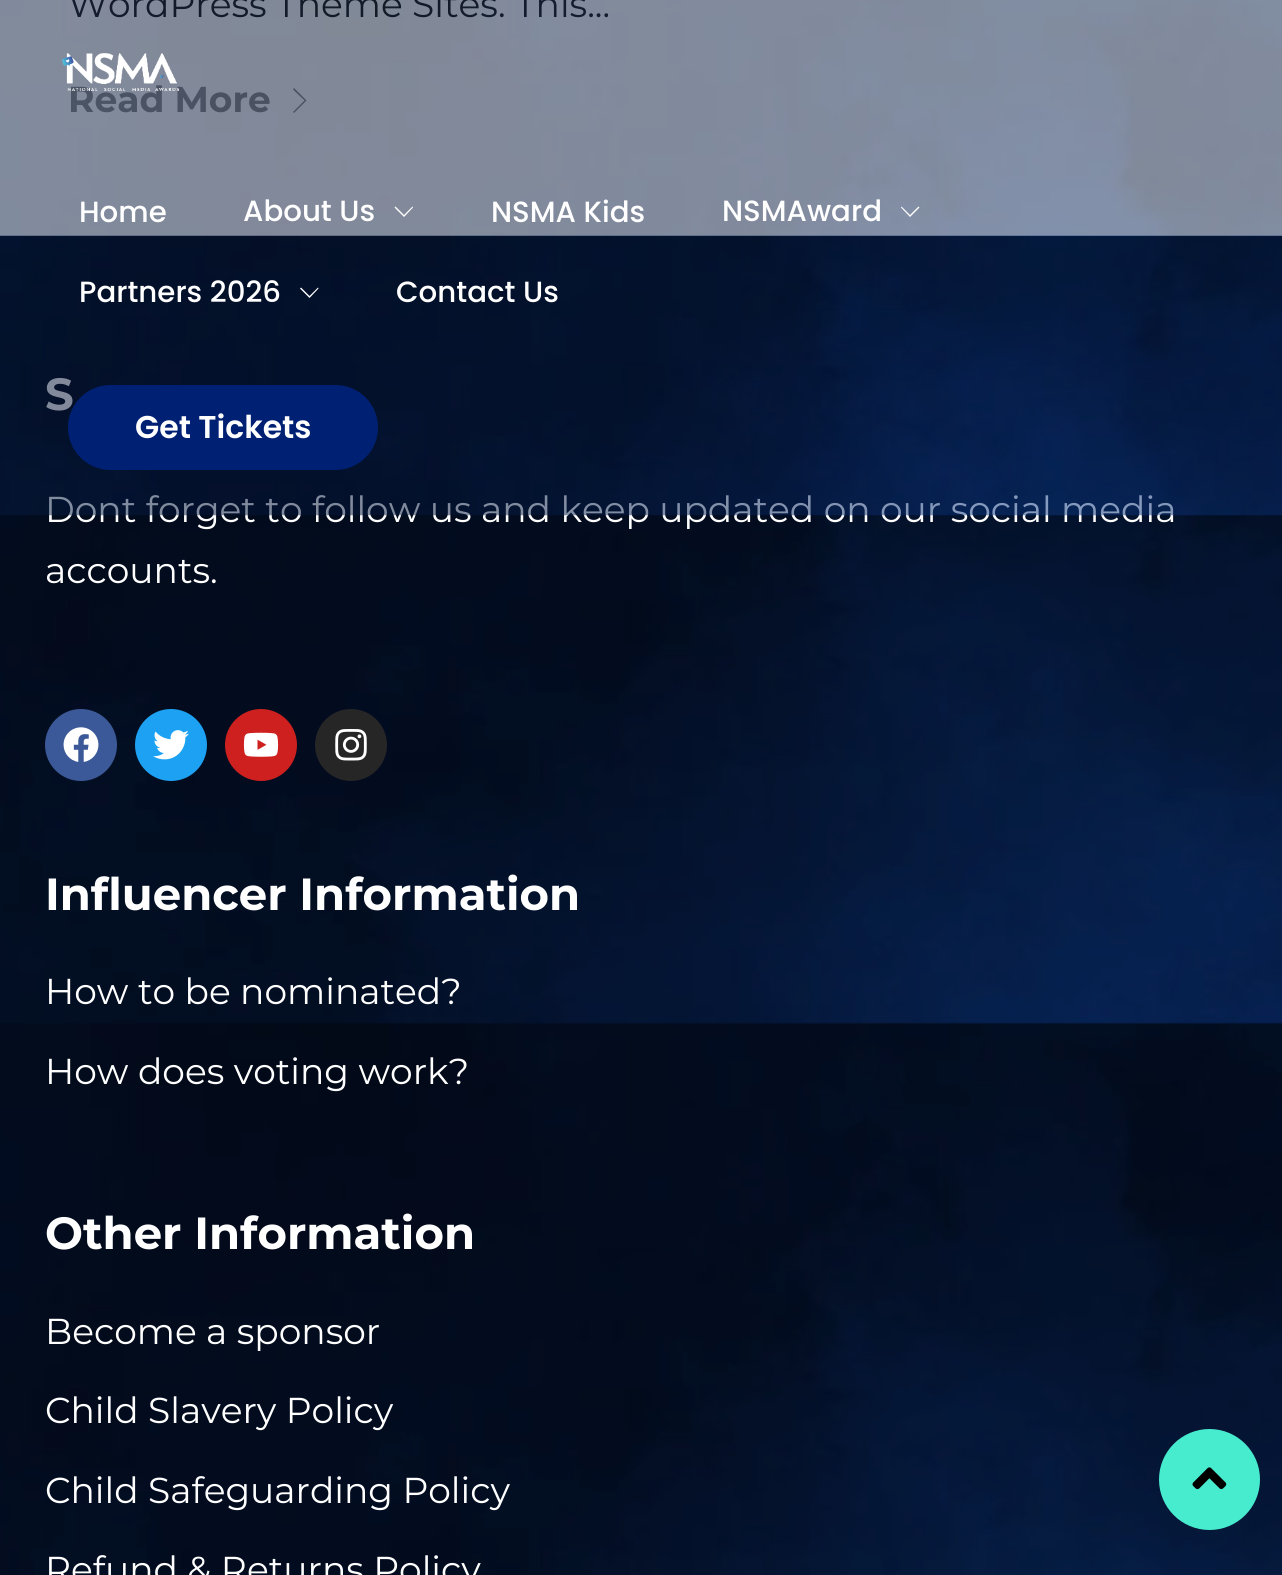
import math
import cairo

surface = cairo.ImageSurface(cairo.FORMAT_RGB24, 1282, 1575)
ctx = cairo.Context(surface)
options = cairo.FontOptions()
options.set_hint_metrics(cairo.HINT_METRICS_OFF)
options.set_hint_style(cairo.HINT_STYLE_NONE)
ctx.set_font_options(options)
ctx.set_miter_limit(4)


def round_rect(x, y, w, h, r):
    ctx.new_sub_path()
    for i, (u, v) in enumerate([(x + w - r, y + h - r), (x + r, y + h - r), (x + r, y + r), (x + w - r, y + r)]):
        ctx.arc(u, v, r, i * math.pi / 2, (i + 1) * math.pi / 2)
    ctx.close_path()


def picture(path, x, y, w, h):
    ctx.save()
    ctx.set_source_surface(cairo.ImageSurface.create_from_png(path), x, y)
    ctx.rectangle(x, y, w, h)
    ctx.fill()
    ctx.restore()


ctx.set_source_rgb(1, 1, 1)
ctx.paint()
ctx.select_font_face("Montserrat")
ctx.set_font_size(36)
ctx.set_source_rgb(0.133, 0.133, 0.133)
ctx.move_to(68, 17)
ctx.show_text("WordPress Theme Sites. This...")
ctx.select_font_face("Montserrat", cairo.FONT_SLANT_NORMAL, cairo.FONT_WEIGHT_BOLD)
ctx.set_source_rgb(0.569, 0.569, 0.569)
ctx.move_to(68, 112)
ctx.show_text("Read More")
ctx.new_path()
ctx.move_to(306.5, 100.5)
ctx.line_to(294, 113)
ctx.line_to(293, 112)
ctx.line_to(304.5, 100.5)
ctx.line_to(293, 89.5)
ctx.line_to(294, 88)
ctx.close_path()
ctx.fill()
picture("img3.png", 0, 235, 1282, 1340)
ctx.set_font_size(45)
ctx.set_source_rgb(1, 1, 1)
ctx.move_to(45, 410)
ctx.show_text("S")
ctx.select_font_face("Montserrat")
ctx.set_font_size(36)
ctx.move_to(45, 522)
ctx.show_text("Dont forget to follow us and keep updated on our social media")
picture("img1.png", 0, 0, 1282, 516)
picture("img2.png", 62, 53, 118, 38)
ctx.select_font_face("Poppins Medium")
ctx.set_font_size(29.25)
ctx.move_to(79, 222)
ctx.show_text("Home")
ctx.move_to(243, 221)
ctx.show_text("About Us")
ctx.new_path()
ctx.move_to(413, 207.5)
ctx.line_to(404, 217)
ctx.line_to(394.5, 207.5)
ctx.line_to(395.5, 206.5)
ctx.line_to(404, 215)
ctx.line_to(412.5, 206.5)
ctx.close_path()
ctx.fill()
ctx.move_to(491, 222)
ctx.show_text("NSMA Kids")
ctx.move_to(722, 221)
ctx.show_text("NSMAward")
ctx.new_path()
ctx.move_to(919.5, 207.5)
ctx.line_to(910, 217)
ctx.line_to(901, 207.5)
ctx.line_to(901.5, 206.5)
ctx.line_to(910, 215)
ctx.line_to(918.5, 206.5)
ctx.close_path()
ctx.fill()
ctx.move_to(79, 302)
ctx.show_text("Partners 2026")
ctx.new_path()
ctx.move_to(318.5, 288.5)
ctx.line_to(309.5, 298)
ctx.line_to(300, 288.5)
ctx.line_to(301, 287.5)
ctx.line_to(309.5, 296)
ctx.line_to(318, 287.5)
ctx.close_path()
ctx.fill()
ctx.move_to(396, 302)
ctx.show_text("Contact Us")
ctx.set_source_rgb(0, 0.125, 0.451)
round_rect(68, 385, 310, 85, 42.5)
ctx.fill()
ctx.select_font_face("Poppins SemiBold")
ctx.set_font_size(31.5)
ctx.set_source_rgb(1, 1, 1)
ctx.move_to(135, 438)
ctx.show_text("Get Tickets")
ctx.select_font_face("Montserrat")
ctx.set_font_size(36)
ctx.move_to(45, 583)
ctx.show_text("accounts.")
ctx.set_source_rgb(0.231, 0.349, 0.596)
ctx.new_path()
ctx.arc(81, 745, 36, 0, 2 * math.pi)
ctx.fill()
picture("img4.png", 63, 727, 36, 35)
ctx.set_source_rgb(0.114, 0.631, 0.949)
ctx.arc(171, 745, 36, 0, 2 * math.pi)
ctx.fill()
picture("img5.png", 153, 730, 36, 30)
ctx.set_source_rgb(0.804, 0.125, 0.122)
ctx.arc(261, 745, 36, 0, 2 * math.pi)
ctx.fill()
picture("img6.png", 243, 732, 36, 25)
ctx.set_source_rgb(0.149, 0.149, 0.149)
ctx.arc(351, 745, 36, 0, 2 * math.pi)
ctx.fill()
picture("img7.png", 335, 729, 32, 32)
ctx.select_font_face("Montserrat", cairo.FONT_SLANT_NORMAL, cairo.FONT_WEIGHT_BOLD)
ctx.set_font_size(45)
ctx.set_source_rgb(1, 1, 1)
ctx.move_to(45, 910)
ctx.show_text("Influencer Information")
ctx.select_font_face("Montserrat")
ctx.set_font_size(36)
ctx.move_to(45, 1004)
ctx.show_text("How to be nominated?")
ctx.move_to(45, 1084)
ctx.show_text("How does voting work?")
ctx.select_font_face("Montserrat", cairo.FONT_SLANT_NORMAL, cairo.FONT_WEIGHT_BOLD)
ctx.set_font_size(45)
ctx.move_to(45, 1249)
ctx.show_text("Other Information")
ctx.select_font_face("Montserrat")
ctx.set_font_size(36)
ctx.move_to(45, 1344)
ctx.show_text("Become a sponsor")
ctx.move_to(45, 1423)
ctx.show_text("Child Slavery Policy")
ctx.move_to(45, 1503)
ctx.show_text("Child Safeguarding Policy")
ctx.move_to(45, 1582)
ctx.show_text("Refund & Returns Policy")
ctx.set_source_rgb(0.278, 0.925, 0.808)
ctx.new_path()
ctx.arc(1209.5, 1479.5, 50.5, 0, 2 * math.pi)
ctx.fill()
picture("img8.png", 1192, 1467, 35, 23)
surface.write_to_png("page.png")
